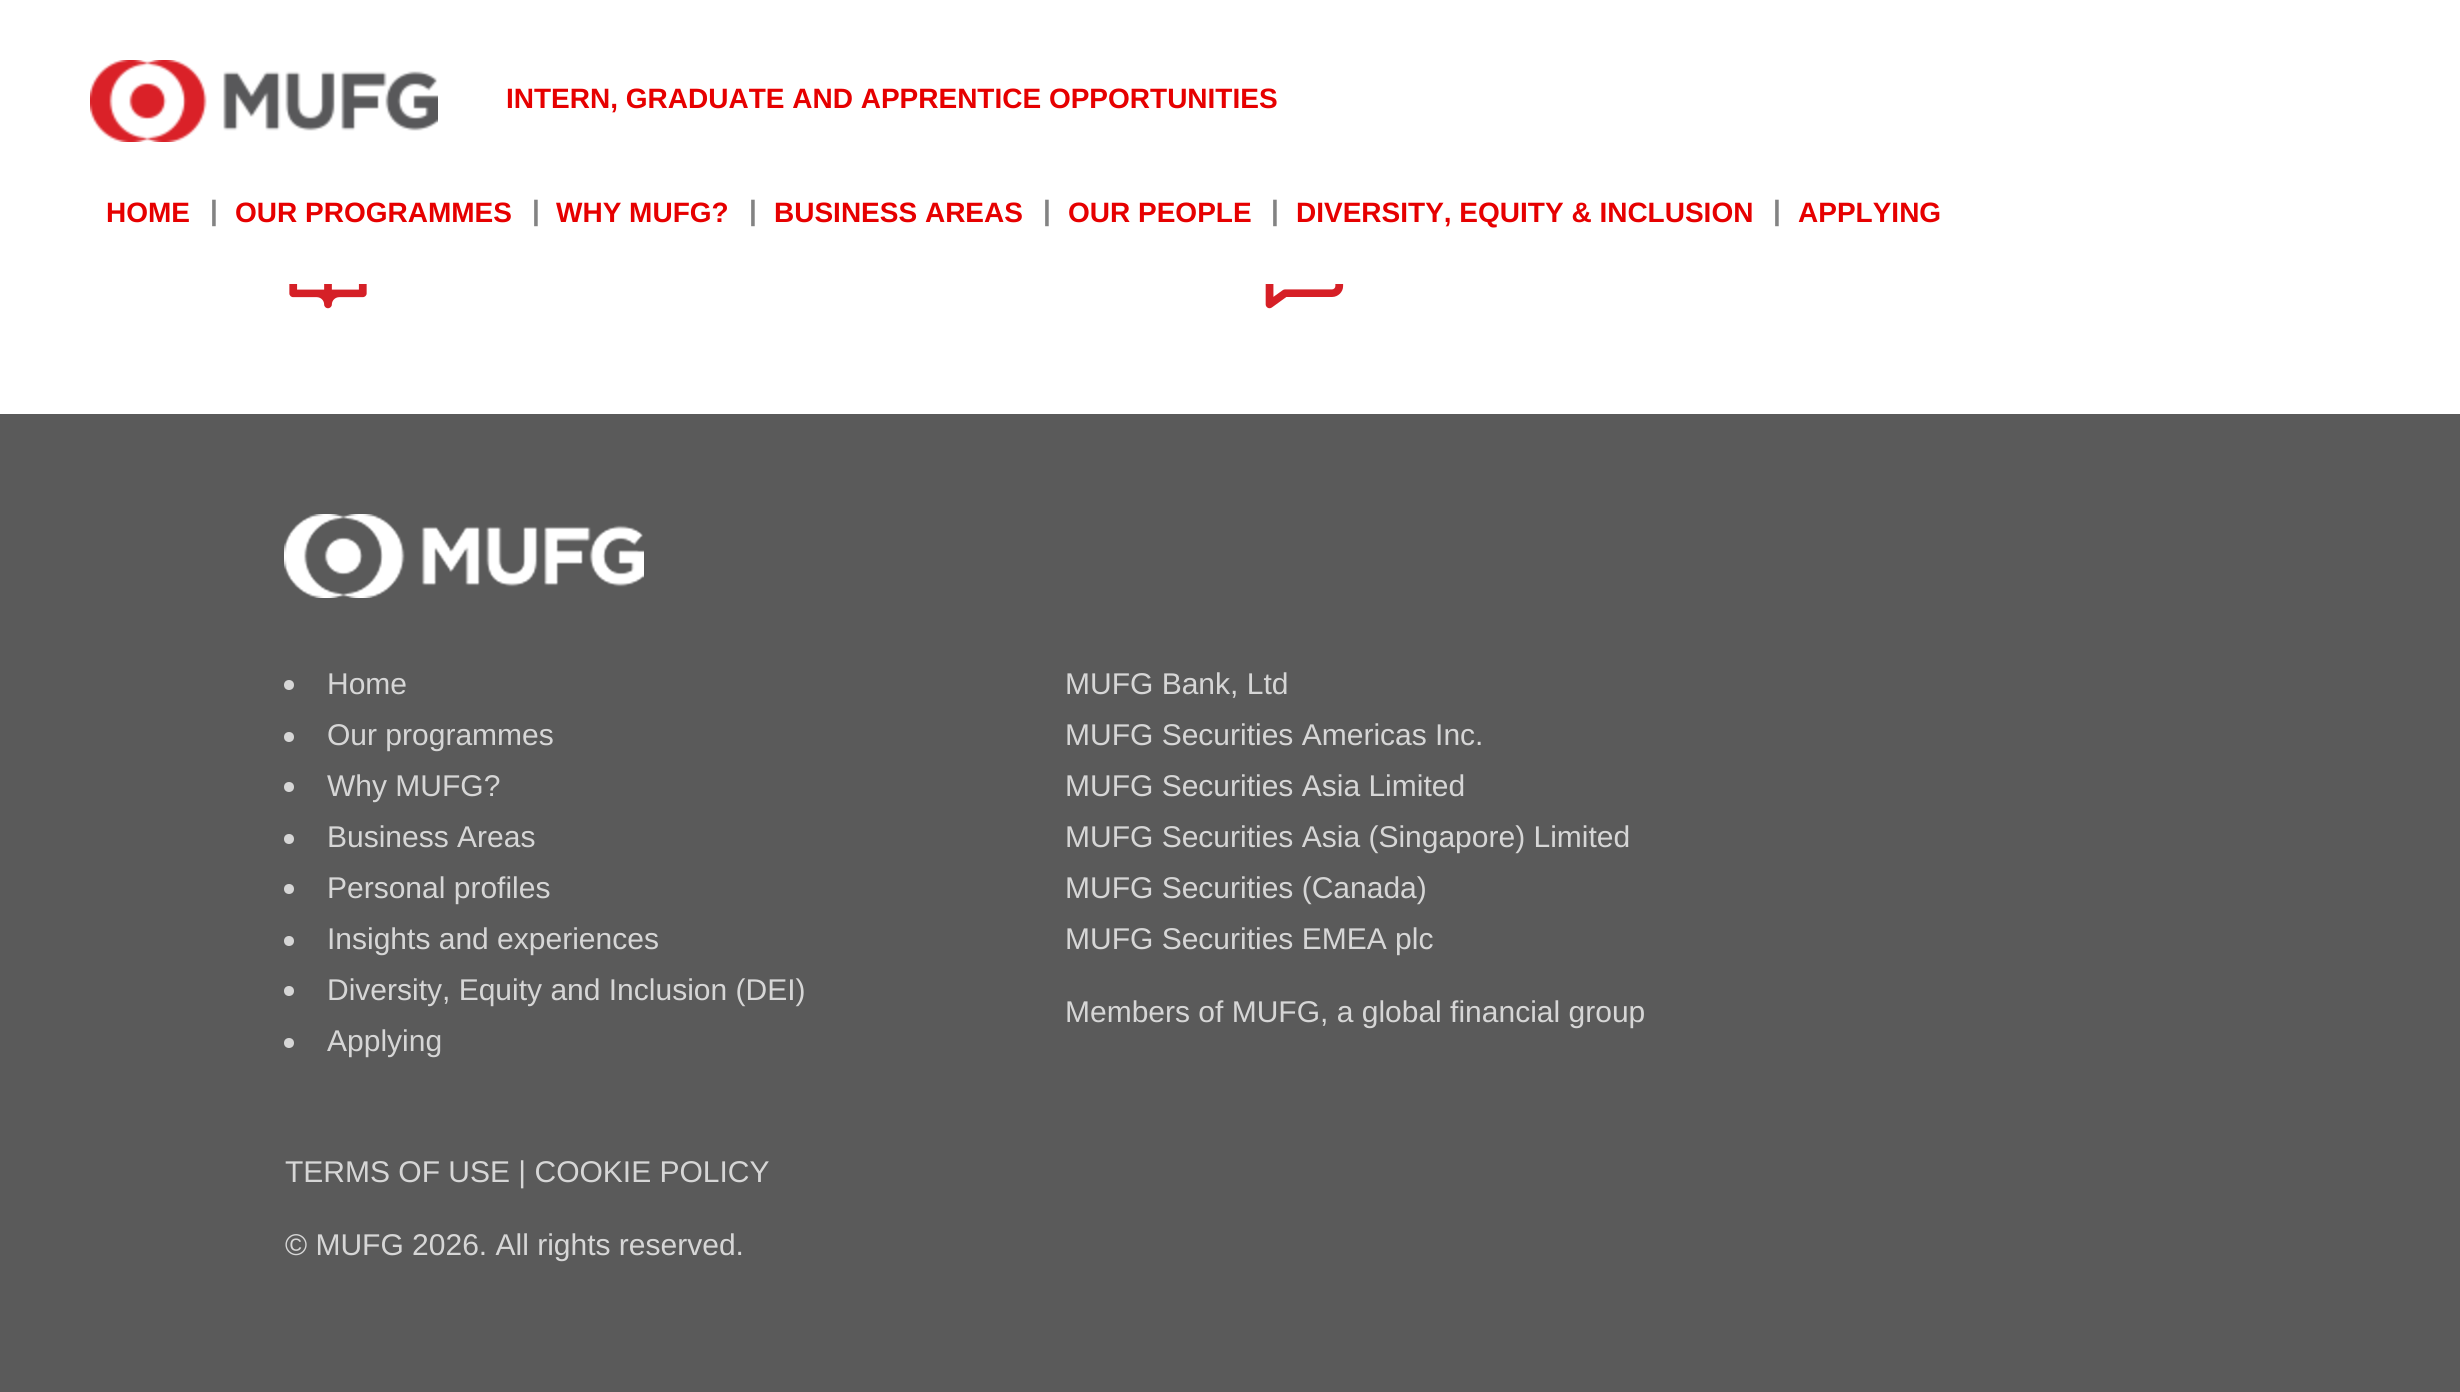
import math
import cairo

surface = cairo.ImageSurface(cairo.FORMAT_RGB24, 2460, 1392)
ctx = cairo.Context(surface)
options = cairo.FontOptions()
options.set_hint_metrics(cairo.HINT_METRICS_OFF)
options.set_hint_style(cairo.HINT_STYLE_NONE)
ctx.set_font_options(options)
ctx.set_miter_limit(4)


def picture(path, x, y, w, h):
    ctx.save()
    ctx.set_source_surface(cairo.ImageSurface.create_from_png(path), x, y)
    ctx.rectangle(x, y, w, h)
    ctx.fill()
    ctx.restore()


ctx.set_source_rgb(1, 1, 1)
ctx.paint()
picture("img1.png", 90, 60, 348, 82)
ctx.select_font_face("Liberation Sans", cairo.FONT_SLANT_NORMAL, cairo.FONT_WEIGHT_BOLD)
ctx.set_font_size(28)
ctx.set_source_rgb(0.902, 0, 0)
ctx.move_to(506, 108)
ctx.show_text("INTERN, GRADUATE AND APPRENTICE OPPORTUNITIES")
ctx.move_to(106, 222)
ctx.show_text("HOME")
ctx.set_source_rgb(0.514, 0.514, 0.514)
ctx.move_to(210, 220)
ctx.show_text("|")
ctx.set_source_rgb(0.902, 0, 0)
ctx.move_to(235, 222)
ctx.show_text("OUR PROGRAMMES")
ctx.set_source_rgb(0.514, 0.514, 0.514)
ctx.move_to(532, 220)
ctx.show_text("|")
ctx.set_source_rgb(0.902, 0, 0)
ctx.move_to(556, 222)
ctx.show_text("WHY MUFG?")
ctx.set_source_rgb(0.514, 0.514, 0.514)
ctx.move_to(749, 220)
ctx.show_text("|")
ctx.set_source_rgb(0.902, 0, 0)
ctx.move_to(774, 222)
ctx.show_text("BUSINESS AREAS")
ctx.set_source_rgb(0.514, 0.514, 0.514)
ctx.move_to(1043, 220)
ctx.show_text("|")
ctx.set_source_rgb(0.902, 0, 0)
ctx.move_to(1068, 222)
ctx.show_text("OUR PEOPLE")
ctx.set_source_rgb(0.514, 0.514, 0.514)
ctx.move_to(1271, 220)
ctx.show_text("|")
ctx.set_source_rgb(0.902, 0, 0)
ctx.move_to(1296, 222)
ctx.show_text("DIVERSITY, EQUITY & INCLUSION")
ctx.set_source_rgb(0.514, 0.514, 0.514)
ctx.move_to(1773, 220)
ctx.show_text("|")
ctx.set_source_rgb(0.902, 0, 0)
ctx.move_to(1798, 222)
ctx.show_text("APPLYING")
picture("img2.png", 289, 284, 78, 25)
picture("img3.png", 1265, 284, 79, 25)
ctx.set_source_rgb(0.353, 0.353, 0.353)
ctx.rectangle(0, 414, 2460, 978)
ctx.fill()
picture("img4.png", 284, 514, 360, 84)
ctx.set_source_rgb(0.839, 0.839, 0.839)
ctx.arc(289, 685, 5, 0, 2 * math.pi)
ctx.fill()
ctx.select_font_face("Liberation Sans")
ctx.set_font_size(30)
ctx.move_to(327, 694)
ctx.show_text("Home")
ctx.new_path()
ctx.arc(289, 737, 5, 0, 2 * math.pi)
ctx.fill()
ctx.move_to(327, 745)
ctx.show_text("Our programmes")
ctx.new_path()
ctx.arc(289, 787, 5, 0, 2 * math.pi)
ctx.fill()
ctx.move_to(327, 796)
ctx.show_text("Why MUFG?")
ctx.new_path()
ctx.arc(289, 839, 5, 0, 2 * math.pi)
ctx.fill()
ctx.move_to(327, 847)
ctx.show_text("Business Areas")
ctx.new_path()
ctx.arc(289, 889, 5, 0, 2 * math.pi)
ctx.fill()
ctx.move_to(327, 898)
ctx.show_text("Personal profiles")
ctx.new_path()
ctx.arc(289, 941, 5, 0, 2 * math.pi)
ctx.fill()
ctx.move_to(327, 949)
ctx.show_text("Insights and experiences")
ctx.new_path()
ctx.arc(289, 991, 5, 0, 2 * math.pi)
ctx.fill()
ctx.move_to(327, 1000)
ctx.show_text("Diversity, Equity and Inclusion (DEI)")
ctx.new_path()
ctx.arc(289, 1043, 5, 0, 2 * math.pi)
ctx.fill()
ctx.move_to(327, 1051)
ctx.show_text("Applying")
ctx.move_to(1065, 694)
ctx.show_text("MUFG Bank, Ltd")
ctx.move_to(1065, 745)
ctx.show_text("MUFG Securities Americas Inc.")
ctx.move_to(1065, 796)
ctx.show_text("MUFG Securities Asia Limited")
ctx.move_to(1065, 847)
ctx.show_text("MUFG Securities Asia (Singapore) Limited")
ctx.move_to(1065, 898)
ctx.show_text("MUFG Securities (Canada)")
ctx.move_to(1065, 949)
ctx.show_text("MUFG Securities EMEA plc")
ctx.move_to(1065, 1022)
ctx.show_text("Members of MUFG, a global financial group")
ctx.move_to(285, 1182)
ctx.show_text("TERMS OF USE | COOKIE POLICY")
ctx.move_to(285, 1255)
ctx.show_text("© MUFG 2026. All rights reserved.")
surface.write_to_png("page.png")
